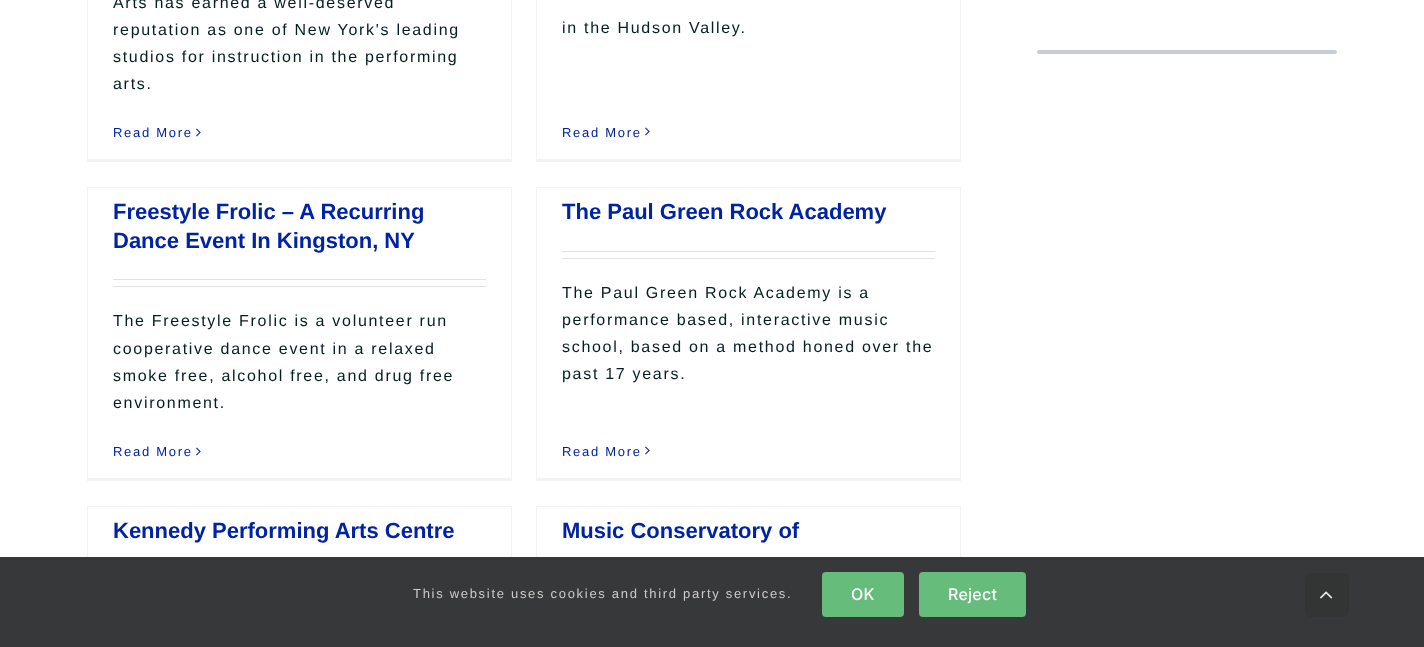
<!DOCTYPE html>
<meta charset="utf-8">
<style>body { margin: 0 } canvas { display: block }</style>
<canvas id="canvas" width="1424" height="647"></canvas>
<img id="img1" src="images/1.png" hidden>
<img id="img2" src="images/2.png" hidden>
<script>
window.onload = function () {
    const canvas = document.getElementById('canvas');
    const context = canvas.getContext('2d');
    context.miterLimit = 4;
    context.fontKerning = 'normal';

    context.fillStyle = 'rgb(255, 255, 255)';
    context.fillRect(0, 0, 1424, 647);
    context.fillStyle = 'rgb(242, 243, 245)';
    context.fillRect(511, 0, 1, 162);
    context.fillRect(87, 159, 425, 3);
    context.fillRect(87, 0, 1, 162);
    context.drawImage(document.getElementById('img1'), 196, 128, 5, 9);
    context.fillRect(960, 0, 1, 162);
    context.fillRect(536, 159, 425, 3);
    context.fillRect(536, 0, 1, 162);
    context.drawImage(document.getElementById('img1'), 645, 127, 5, 9);
    context.fillRect(87, 187, 425, 1);
    context.fillRect(511, 187, 1, 294);
    context.fillRect(87, 478, 425, 3);
    context.fillRect(87, 187, 1, 294);
    context.fillStyle = 'rgb(226, 226, 226)';
    context.fillRect(113, 279, 373, 1);
    context.fillRect(113, 286, 373, 1);
    context.drawImage(document.getElementById('img1'), 196, 447, 5, 9);
    context.fillStyle = 'rgb(242, 243, 245)';
    context.fillRect(536, 187, 425, 1);
    context.fillRect(960, 187, 1, 294);
    context.fillRect(536, 478, 425, 3);
    context.fillRect(536, 187, 1, 294);
    context.fillStyle = 'rgb(226, 226, 226)';
    context.fillRect(562, 251, 373, 1);
    context.fillRect(562, 258, 373, 1);
    context.drawImage(document.getElementById('img1'), 645, 446, 5, 9);
    context.fillStyle = 'rgb(242, 243, 245)';
    context.fillRect(87, 506, 425, 1);
    context.fillRect(511, 506, 1, 51);
    context.fillRect(87, 506, 1, 51);
    context.fillRect(536, 506, 425, 1);
    context.fillRect(960, 506, 1, 51);
    context.fillRect(536, 506, 1, 51);
    context.fillStyle = 'rgb(199, 204, 219)';
    context.beginPath();
    context.roundRect(1037, 50, 300, 4, 2);
    context.fill();
    context.fillStyle = 'rgb(54, 56, 57)';
    context.fillRect(0, 557, 1424, 90);
    context.fillStyle = 'rgb(101, 188, 123)';
    context.beginPath();
    context.roundRect(822, 572, 82, 45, 4);
    context.fill();
    context.beginPath();
    context.roundRect(919, 572, 107, 45, 4);
    context.fill();
    context.fillStyle = 'rgb(51, 52, 52)';
    context.beginPath();
    context.roundRect(1305, 573, 44, 44, 6);
    context.fill();
    context.drawImage(document.getElementById('img2'), 1320, 591, 13, 8);
    context.letterSpacing = '1.7px';
    context.font = '16px Liberation Sans';
    context.fillStyle = 'rgb(5, 30, 31)';
    context.fillText('Arts has earned a well-deserved', 113, 8);
    context.fillText('reputation as one of New York\'s leading', 113, 35);
    context.fillText('studios for instruction in the performing', 113, 62);
    context.fillText('arts.', 113, 89);
    context.font = '13px Liberation Sans';
    context.fillStyle = 'rgb(0, 35, 165)';
    context.fillText('Read More', 113, 137);
    context.font = '16px Liberation Sans';
    context.fillStyle = 'rgb(5, 30, 31)';
    context.fillText('in the Hudson Valley.', 562, 33);
    context.font = '13px Liberation Sans';
    context.fillStyle = 'rgb(0, 35, 165)';
    context.fillText('Read More', 562, 137);
    context.letterSpacing = '0px';
    context.font = 'bold 22px Liberation Sans';
    context.fillText('Freestyle Frolic – A Recurring', 113, 219);
    context.fillText('Dance Event In Kingston, NY', 113, 248);
    context.letterSpacing = '1.7px';
    context.font = '16px Liberation Sans';
    context.fillStyle = 'rgb(5, 30, 31)';
    context.fillText('The Freestyle Frolic is a volunteer run', 113, 326);
    context.fillText('cooperative dance event in a relaxed', 113, 354);
    context.fillText('smoke free, alcohol free, and drug free', 113, 381);
    context.fillText('environment.', 113, 408);
    context.font = '13px Liberation Sans';
    context.fillStyle = 'rgb(0, 35, 165)';
    context.fillText('Read More', 113, 456);
    context.letterSpacing = '0px';
    context.font = 'bold 22px Liberation Sans';
    context.fillText('The Paul Green Rock Academy', 562, 219);
    context.letterSpacing = '1.7px';
    context.font = '16px Liberation Sans';
    context.fillStyle = 'rgb(5, 30, 31)';
    context.fillText('The Paul Green Rock Academy is a', 562, 298);
    context.fillText('performance based, interactive music', 562, 325);
    context.fillText('school, based on a method honed over the', 562, 352);
    context.fillText('past 17 years.', 562, 379);
    context.font = '13px Liberation Sans';
    context.fillStyle = 'rgb(0, 35, 165)';
    context.fillText('Read More', 562, 456);
    context.letterSpacing = '0px';
    context.font = 'bold 22px Liberation Sans';
    context.fillText('Kennedy Performing Arts Centre', 113, 538);
    context.fillText('Music Conservatory of', 562, 538);
    context.letterSpacing = '1.7px';
    context.font = '13px Liberation Sans';
    context.fillStyle = 'rgb(206, 203, 202)';
    context.fillText('This website uses cookies and third party services.', 413, 598);
    context.letterSpacing = '0.25px';
    context.font = '500 16px Inter';
    context.fillStyle = 'rgb(255, 255, 255)';
    context.fillText('OK', 851, 600);
    context.fillText('Reject', 948, 600);
};
</script>
